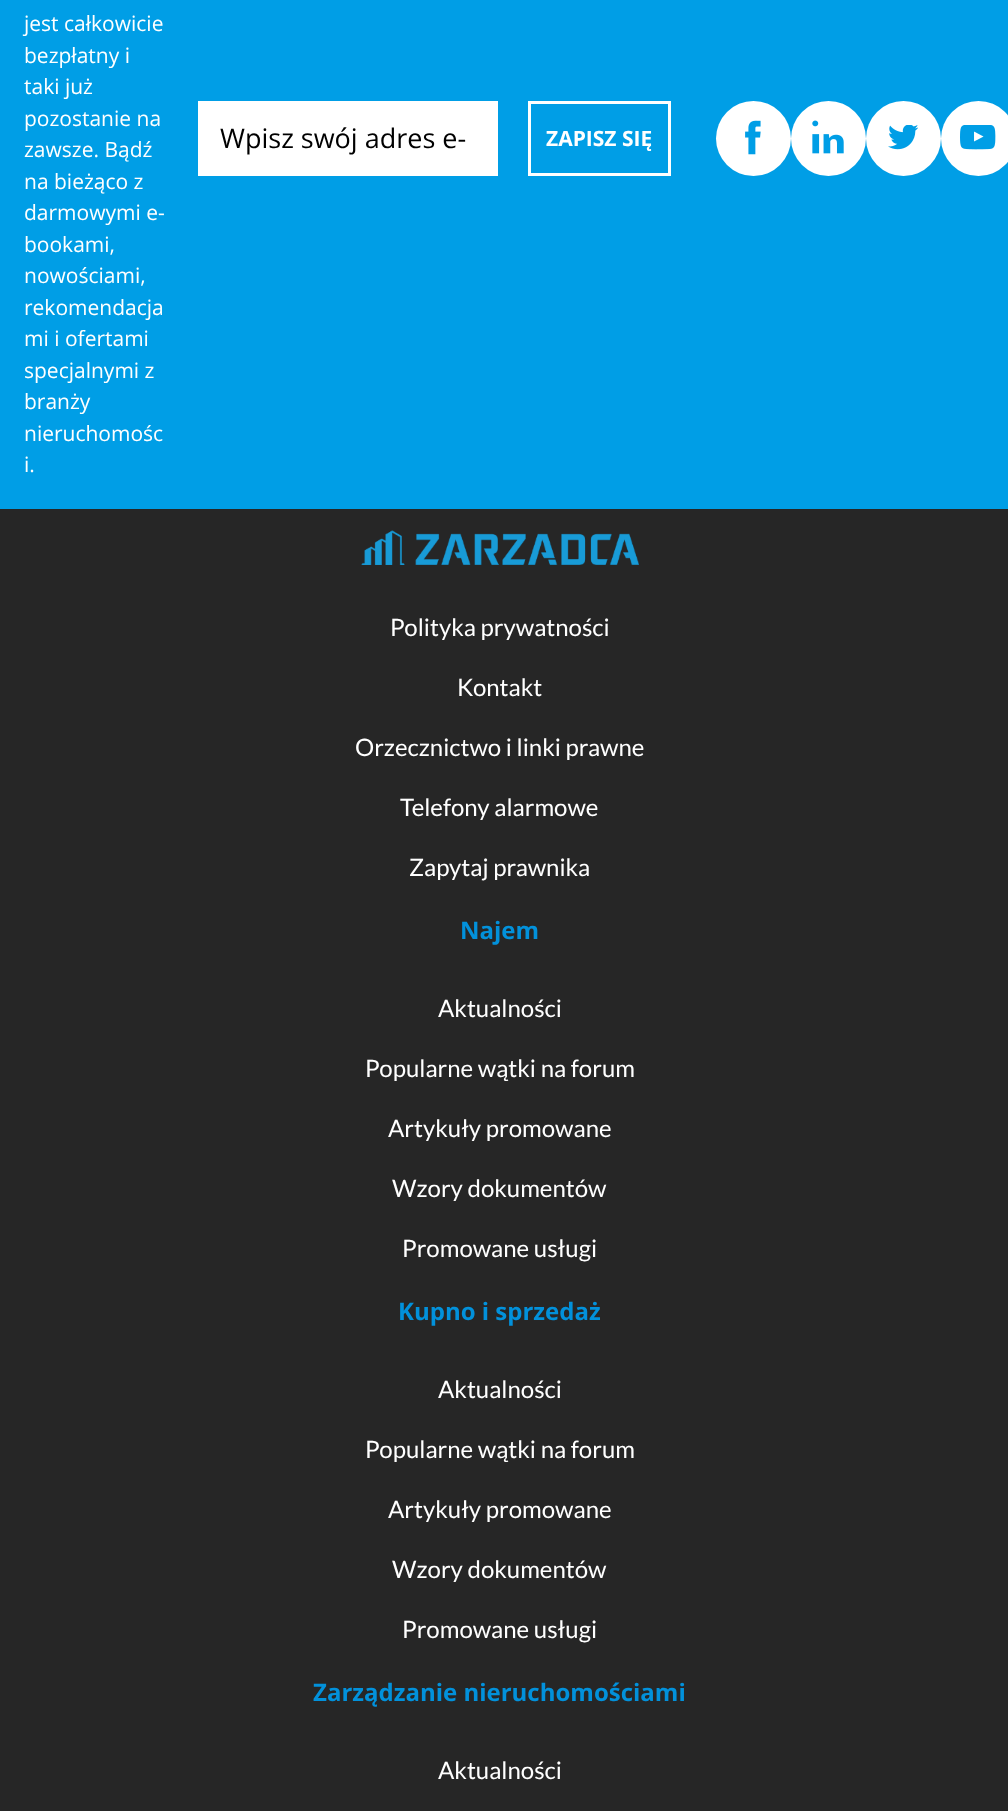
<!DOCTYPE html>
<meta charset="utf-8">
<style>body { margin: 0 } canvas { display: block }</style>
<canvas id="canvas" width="1008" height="1811"></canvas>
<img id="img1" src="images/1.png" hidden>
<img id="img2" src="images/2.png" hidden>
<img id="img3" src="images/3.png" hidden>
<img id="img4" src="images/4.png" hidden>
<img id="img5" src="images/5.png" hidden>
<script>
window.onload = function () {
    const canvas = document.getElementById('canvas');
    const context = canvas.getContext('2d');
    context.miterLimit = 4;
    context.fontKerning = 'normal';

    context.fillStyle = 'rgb(0, 158, 230)';
    context.fillRect(0, 0, 1008, 1811);
    context.fillStyle = 'rgb(255, 255, 255)';
    context.fillRect(198, 101, 300, 75);
    context.strokeStyle = 'rgb(255, 255, 255)';
    context.lineWidth = 3;
    context.strokeRect(529.5, 102.5, 140, 72);
    context.beginPath();
    context.arc(753.5, 138.5, 37.5, 0, 2 * Math.PI);
    context.fill();
    context.drawImage(document.getElementById('img1'), 745, 120, 16, 35);
    context.beginPath();
    context.arc(828.5, 138.5, 37.5, 0, 2 * Math.PI);
    context.fill();
    context.drawImage(document.getElementById('img2'), 812, 120, 32, 34);
    context.beginPath();
    context.arc(903.5, 138.5, 37.5, 0, 2 * Math.PI);
    context.fill();
    context.drawImage(document.getElementById('img3'), 888, 125, 30, 25);
    context.beginPath();
    context.arc(978.5, 138.5, 37.5, 0, 2 * Math.PI);
    context.fill();
    context.drawImage(document.getElementById('img4'), 960, 125, 36, 25);
    context.fillStyle = 'rgb(38, 38, 38)';
    context.fillRect(0, 509, 1008, 1302);
    context.drawImage(document.getElementById('img5'), 361, 530, 278, 35);
    context.font = '21px Open Sans';
    context.fillStyle = 'rgb(255, 255, 255)';
    context.fillText('jest całkowicie', 24, 31);
    context.fillText('bezpłatny i', 24, 63);
    context.fillText('taki już', 24, 94);
    context.fillText('pozostanie na', 24, 126);
    context.fillText('zawsze. Bądź', 24, 157);
    context.fillText('na bieżąco z', 24, 189);
    context.fillText('darmowymi e-', 24, 220);
    context.fillText('bookami,', 24, 252);
    context.fillText('nowościami,', 24, 283);
    context.fillText('rekomendacja', 24, 315);
    context.fillText('mi i ofertami', 24, 346);
    context.fillText('specjalnymi z', 24, 378);
    context.fillText('branży', 24, 409);
    context.fillText('nieruchomośc', 24, 441);
    context.fillText('i.', 24, 472);
    context.font = '27px Open Sans';
    context.fillStyle = 'rgb(0, 0, 0)';
    context.fillText('Wpisz swój adres e-', 220, 148);
    context.font = 'bold 21px Open Sans';
    context.fillStyle = 'rgb(255, 255, 255)';
    context.fillText('ZAPISZ SIĘ', 546, 146);
    context.font = '24px Lato';
    context.fillText('Polityka prywatności', 390, 636);
    context.fillText('Kontakt', 457, 696);
    context.fillText('Orzecznictwo i linki prawne', 355, 756);
    context.fillText('Telefony alarmowe', 400, 816);
    context.fillText('Zapytaj prawnika', 409, 876);
    context.font = 'bold 24px Open Sans';
    context.fillStyle = 'rgb(2, 145, 219)';
    context.fillText('Najem', 460, 939);
    context.font = '24px Lato';
    context.fillStyle = 'rgb(255, 255, 255)';
    context.fillText('Aktualności', 438, 1017);
    context.fillText('Popularne wątki na forum', 365, 1077);
    context.fillText('Artykuły promowane', 388, 1137);
    context.fillText('Wzory dokumentów', 392, 1197);
    context.fillText('Promowane usługi', 402, 1257);
    context.font = 'bold 24px Open Sans';
    context.fillStyle = 'rgb(2, 145, 219)';
    context.fillText('Kupno i sprzedaż', 398, 1320);
    context.font = '24px Lato';
    context.fillStyle = 'rgb(255, 255, 255)';
    context.fillText('Aktualności', 438, 1398);
    context.fillText('Popularne wątki na forum', 365, 1458);
    context.fillText('Artykuły promowane', 388, 1518);
    context.fillText('Wzory dokumentów', 392, 1578);
    context.fillText('Promowane usługi', 402, 1638);
    context.font = 'bold 24px Open Sans';
    context.fillStyle = 'rgb(2, 145, 219)';
    context.fillText('Zarządzanie nieruchomościami', 313, 1701);
    context.font = '24px Lato';
    context.fillStyle = 'rgb(255, 255, 255)';
    context.fillText('Aktualności', 438, 1779);
};
</script>
